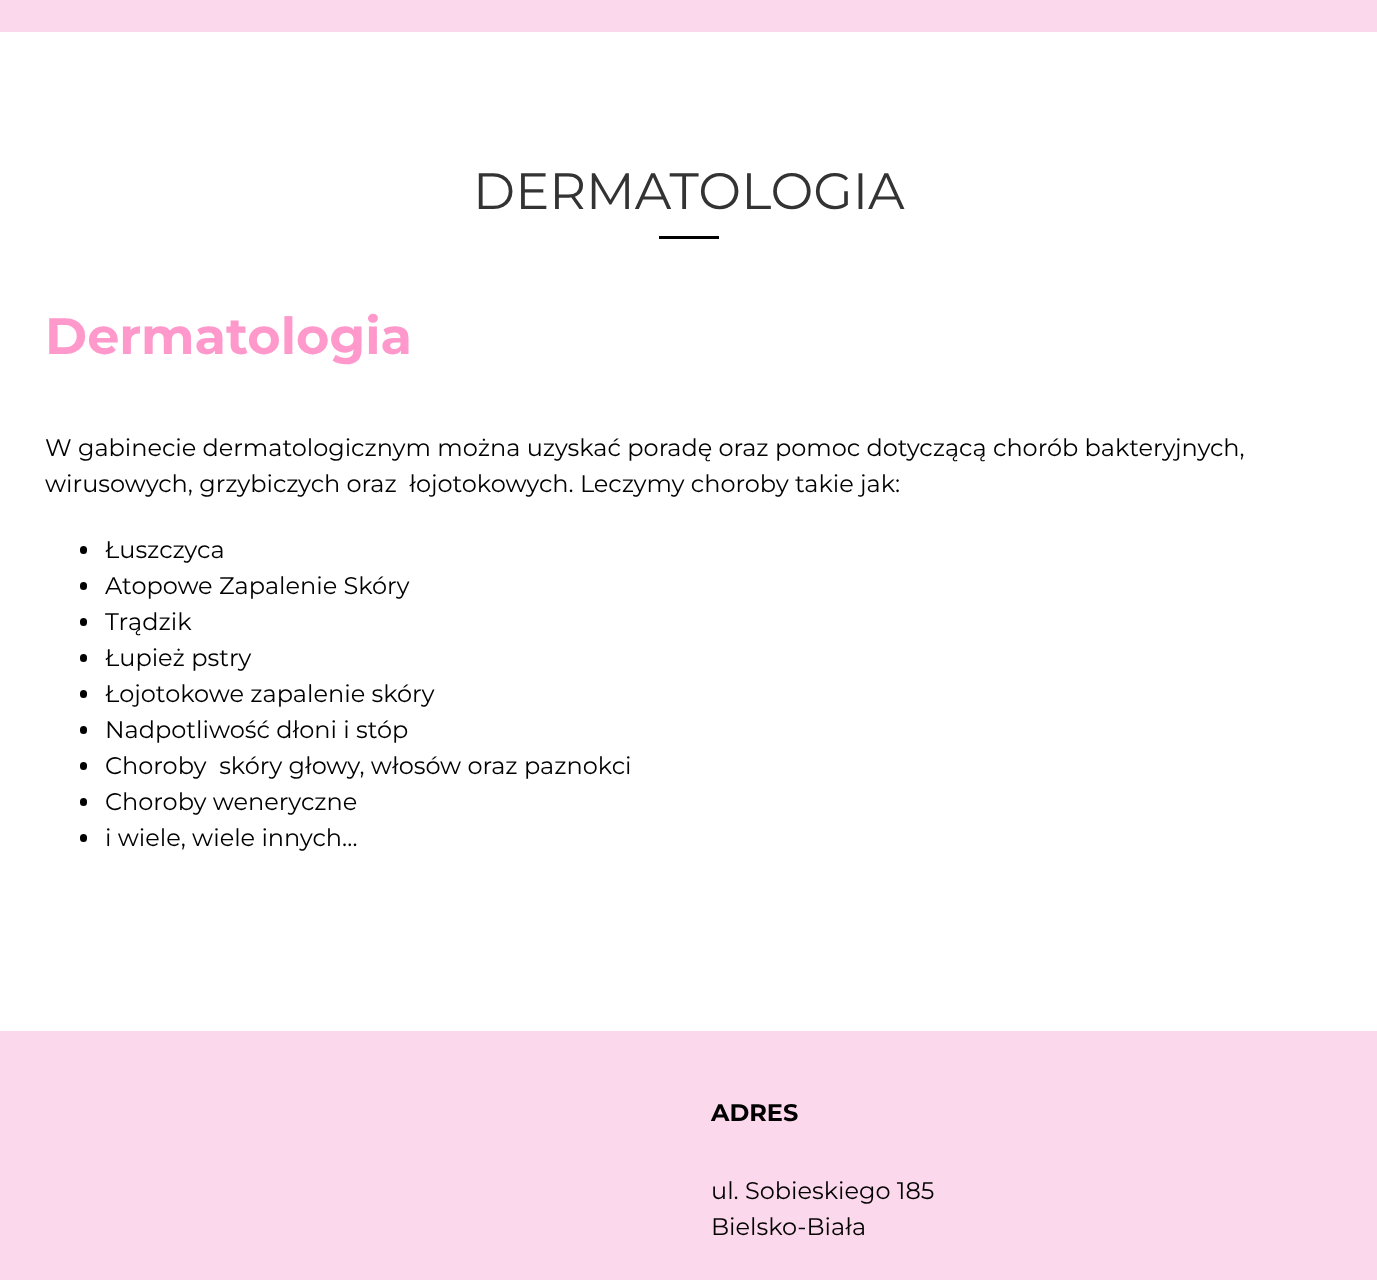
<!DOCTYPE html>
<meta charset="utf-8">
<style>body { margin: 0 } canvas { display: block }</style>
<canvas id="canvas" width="1377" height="1280"></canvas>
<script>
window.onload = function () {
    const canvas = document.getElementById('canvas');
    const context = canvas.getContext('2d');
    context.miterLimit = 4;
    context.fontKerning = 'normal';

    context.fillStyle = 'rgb(255, 255, 255)';
    context.fillRect(0, 0, 1377, 1280);
    context.fillStyle = 'rgb(251, 216, 236)';
    context.fillRect(0, 0, 1377, 32);
    context.fillStyle = 'rgb(0, 0, 0)';
    context.fillRect(659, 236, 60, 3);
    context.beginPath();
    context.roundRect(80, 546, 7, 8, 3.5);
    context.fill();
    context.beginPath();
    context.roundRect(80, 582, 7, 8, 3.5);
    context.fill();
    context.beginPath();
    context.roundRect(80, 618, 7, 8, 3.5);
    context.fill();
    context.beginPath();
    context.roundRect(80, 654, 7, 8, 3.5);
    context.fill();
    context.beginPath();
    context.roundRect(80, 690, 7, 8, 3.5);
    context.fill();
    context.beginPath();
    context.roundRect(80, 726, 7, 8, 3.5);
    context.fill();
    context.beginPath();
    context.roundRect(80, 762, 7, 8, 3.5);
    context.fill();
    context.beginPath();
    context.roundRect(80, 798, 7, 8, 3.5);
    context.fill();
    context.beginPath();
    context.roundRect(80, 834, 7, 8, 3.5);
    context.fill();
    context.fillStyle = 'rgb(251, 216, 236)';
    context.fillRect(0, 1031, 1377, 249);
    context.font = '51px Montserrat';
    context.fillStyle = 'rgb(51, 51, 51)';
    context.fillText('DERMATOLOGIA', 473, 209);
    context.font = 'bold 51px Montserrat';
    context.fillStyle = 'rgb(255, 153, 204)';
    context.fillText('Dermatologia', 45, 354);
    context.font = '24px Montserrat';
    context.fillStyle = 'rgb(0, 0, 0)';
    context.fillText('W gabinecie dermatologicznym można uzyskać poradę oraz pomoc dotyczącą chorób bakteryjnych,', 45, 456);
    context.fillText('wirusowych, grzybiczych oraz  łojotokowych. Leczymy choroby takie jak:', 45, 492);
    context.fillText('Łuszczyca', 105, 558);
    context.fillText('Atopowe Zapalenie Skóry', 105, 594);
    context.fillText('Trądzik', 105, 630);
    context.fillText('Łupież pstry', 105, 666);
    context.fillText('Łojotokowe zapalenie skóry', 105, 702);
    context.fillText('Nadpotliwość dłoni i stóp', 105, 738);
    context.fillText('Choroby  skóry głowy, włosów oraz paznokci', 105, 774);
    context.fillText('Choroby weneryczne', 105, 810);
    context.fillText('i wiele, wiele innych…', 105, 846);
    context.font = 'bold 24px Montserrat';
    context.fillText('ADRES', 711, 1121);
    context.font = '24px Montserrat';
    context.fillText('ul. Sobieskiego 185', 711, 1199);
    context.fillText('Bielsko-Biała', 711, 1235);
};
</script>
